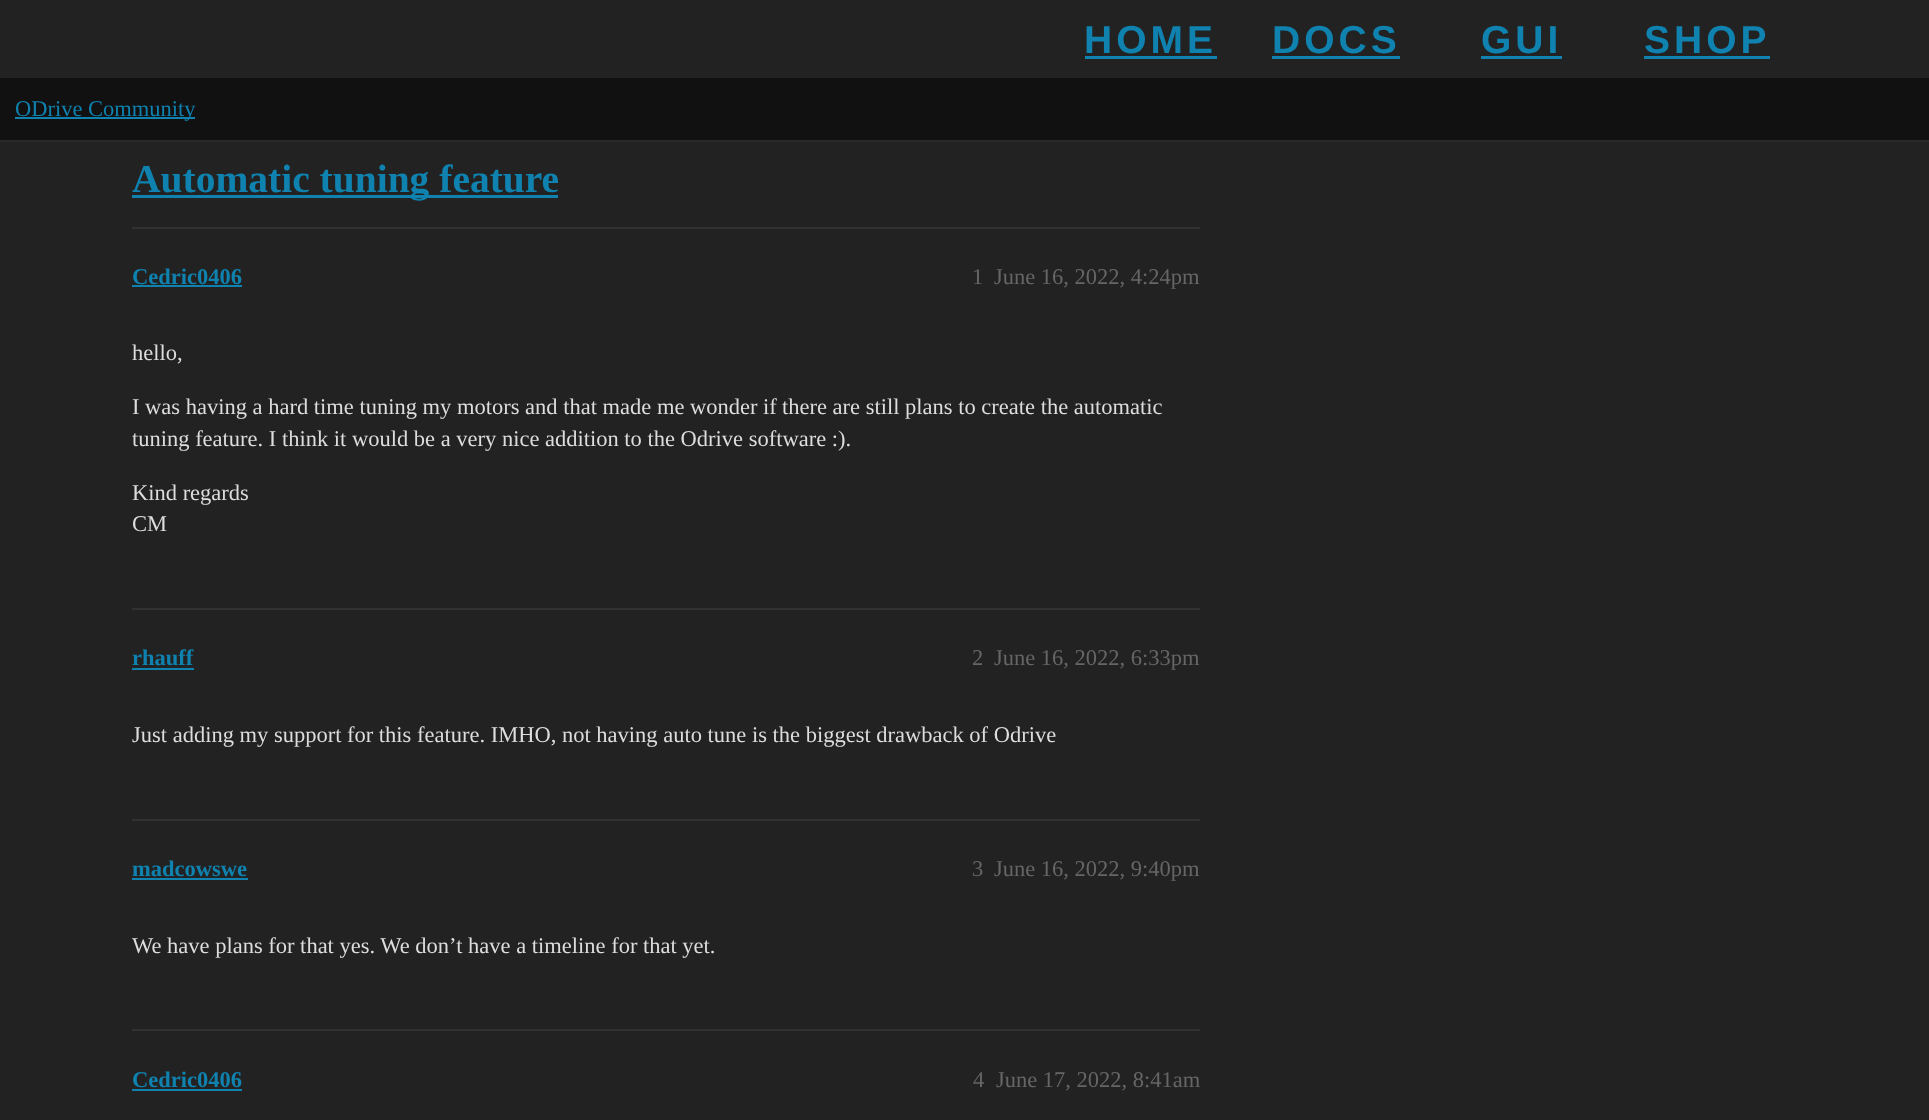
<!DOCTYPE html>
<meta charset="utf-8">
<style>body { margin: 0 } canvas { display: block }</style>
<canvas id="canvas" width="1929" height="1120"></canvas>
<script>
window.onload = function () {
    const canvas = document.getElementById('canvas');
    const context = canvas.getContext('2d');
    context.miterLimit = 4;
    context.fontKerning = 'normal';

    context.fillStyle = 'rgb(34, 34, 34)';
    context.fillRect(0, 0, 1929, 1120);
    context.fillStyle = 'rgb(15, 130, 175)';
    context.fillRect(1085, 56, 132, 3);
    context.fillRect(1272, 56, 128, 3);
    context.fillRect(1481, 56, 81, 3);
    context.fillRect(1644, 56, 126, 3);
    context.fillStyle = 'rgb(17, 17, 17)';
    context.fillRect(0, 78, 1929, 62);
    context.fillStyle = 'rgb(40, 40, 40)';
    context.fillRect(0, 140, 1929, 2);
    context.fillStyle = 'rgb(15, 130, 175)';
    context.fillRect(15, 117, 180, 2);
    context.fillRect(132, 195, 426, 3);
    context.fillStyle = 'rgb(49, 49, 49)';
    context.fillRect(132, 227, 1068, 2);
    context.fillStyle = 'rgb(15, 130, 175)';
    context.fillRect(132, 285, 110, 2);
    context.fillStyle = 'rgb(49, 49, 49)';
    context.fillRect(132, 608, 1068, 2);
    context.fillStyle = 'rgb(15, 130, 175)';
    context.fillRect(132, 668, 62, 2);
    context.fillStyle = 'rgb(49, 49, 49)';
    context.fillRect(132, 819, 1068, 2);
    context.fillStyle = 'rgb(15, 130, 175)';
    context.fillRect(132, 878, 116, 2);
    context.fillStyle = 'rgb(49, 49, 49)';
    context.fillRect(132, 1029, 1068, 2);
    context.fillStyle = 'rgb(15, 130, 175)';
    context.fillRect(132, 1089, 110, 2);
    context.letterSpacing = '4px';
    context.font = 'bold 39px Liberation Sans';
    context.fillText('HOME', 1084, 53);
    context.fillText('DOCS', 1272, 53);
    context.fillText('GUI', 1481, 53);
    context.fillText('SHOP', 1644, 53);
    context.letterSpacing = '0px';
    context.font = '22.5px Liberation Serif';
    context.fillText('ODrive Community', 15, 116);
    context.font = 'bold 39.5px Liberation Serif';
    context.fillText('Automatic tuning feature', 132, 192);
    context.font = 'bold 22.5px Liberation Serif';
    context.fillText('Cedric0406', 132, 284);
    context.font = '22.5px Liberation Serif';
    context.fillStyle = 'rgb(102, 102, 102)';
    context.fillText('1', 972, 284);
    context.fillText('June 16, 2022, 4:24pm', 994, 284);
    context.fillStyle = 'rgb(221, 221, 221)';
    context.fillText('hello,', 132, 360);
    context.fillText('I was having a hard time tuning my motors and that made me wonder if', 132, 414);
    context.fillText('there are still plans to create the automatic', 782, 414);
    context.fillText('tuning feature. I think it would be a very nice addition to the Odrive software :).', 132, 446);
    context.fillText('Kind regards', 132, 500);
    context.fillText('CM', 132, 531);
    context.font = 'bold 22.5px Liberation Serif';
    context.fillStyle = 'rgb(15, 130, 175)';
    context.fillText('rhauff', 132, 665);
    context.font = '22.5px Liberation Serif';
    context.fillStyle = 'rgb(102, 102, 102)';
    context.fillText('2', 972, 665);
    context.fillText('June 16, 2022, 6:33pm', 994, 665);
    context.fillStyle = 'rgb(221, 221, 221)';
    context.fillText('Just adding my support for this feature. IMHO, not having auto tune is the biggest drawback of Odrive', 132, 742);
    context.font = 'bold 22.5px Liberation Serif';
    context.fillStyle = 'rgb(15, 130, 175)';
    context.fillText('madcowswe', 132, 876);
    context.font = '22.5px Liberation Serif';
    context.fillStyle = 'rgb(102, 102, 102)';
    context.fillText('3', 972, 876);
    context.fillText('June 16, 2022, 9:40pm', 994, 876);
    context.fillStyle = 'rgb(221, 221, 221)';
    context.fillText('We have plans for that yes. We don’t have a timeline for that yet.', 132, 953);
    context.font = 'bold 22.5px Liberation Serif';
    context.fillStyle = 'rgb(15, 130, 175)';
    context.fillText('Cedric0406', 132, 1087);
    context.font = '22.5px Liberation Serif';
    context.fillStyle = 'rgb(102, 102, 102)';
    context.fillText('4', 973, 1087);
    context.fillText('June 17, 2022, 8:41am', 996, 1087);
};
</script>
